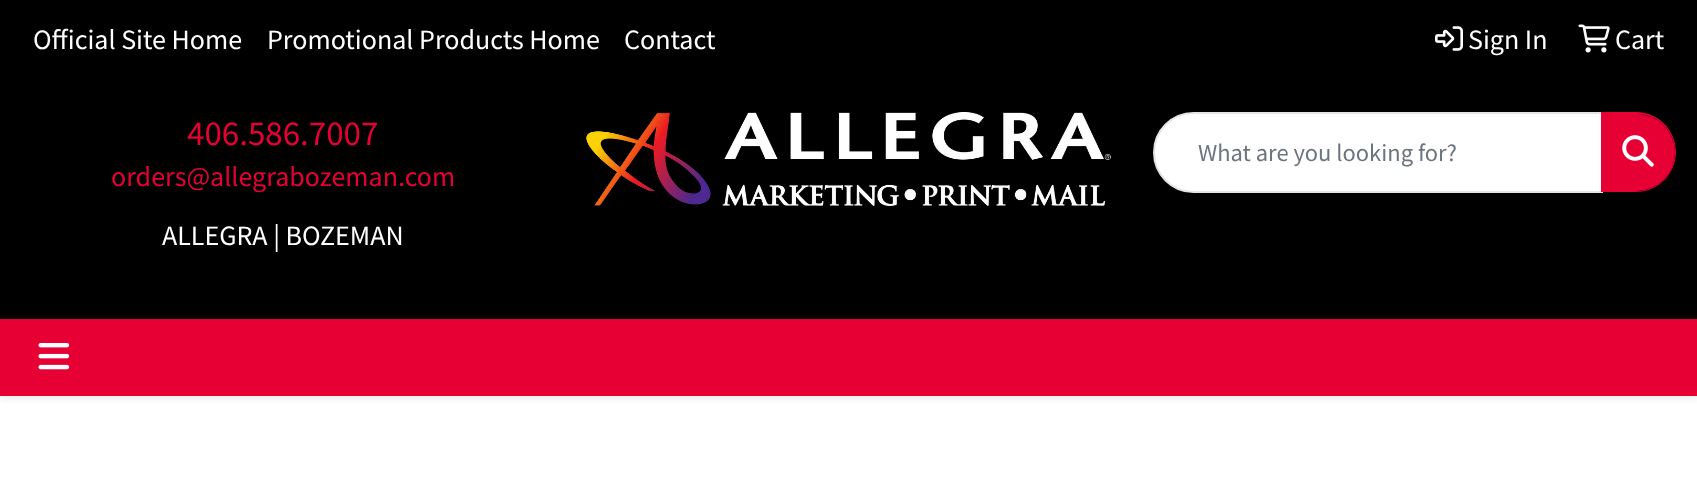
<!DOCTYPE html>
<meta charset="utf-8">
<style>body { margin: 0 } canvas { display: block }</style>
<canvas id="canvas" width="1697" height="485"></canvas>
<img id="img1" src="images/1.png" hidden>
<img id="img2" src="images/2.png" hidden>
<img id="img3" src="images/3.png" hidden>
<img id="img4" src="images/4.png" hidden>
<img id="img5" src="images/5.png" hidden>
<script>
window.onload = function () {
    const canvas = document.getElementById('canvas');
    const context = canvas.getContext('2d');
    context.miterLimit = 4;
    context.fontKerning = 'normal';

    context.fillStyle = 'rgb(255, 255, 255)';
    context.fillRect(0, 0, 1697, 485);
    context.fillStyle = 'rgb(0, 0, 0)';
    context.fillRect(0, 0, 1697, 319);
    context.drawImage(document.getElementById('img1'), 1435, 26, 28, 25);
    context.drawImage(document.getElementById('img2'), 1578, 24, 32, 29);
    context.drawImage(document.getElementById('img3'), 586, 112, 525, 94);
    context.fillStyle = 'rgb(255, 255, 255)';
    context.beginPath();
    context.roundRect(1154, 113, 448, 79, [39.5, 0, 0, 39.5]);
    context.fill();
    context.strokeStyle = 'rgb(228, 228, 228)';
    context.lineWidth = 2;
    context.stroke();
    context.fillStyle = 'rgb(231, 0, 52)';
    context.beginPath();
    context.roundRect(1601, 114, 74, 77, [0, 38.5, 38.5, 0]);
    context.fill();
    context.beginPath();
    context.moveTo(1601, 112);
    context.lineTo(1636, 112);
    context.bezierCurveTo(1658, 112, 1676, 130, 1676, 152);
    context.bezierCurveTo(1676, 174, 1658, 192, 1636, 192);
    context.lineTo(1601, 192);
    context.closePath();
    context.moveTo(1601, 114);
    context.lineTo(1636, 114);
    context.bezierCurveTo(1658, 114, 1675, 131, 1675, 152);
    context.bezierCurveTo(1675, 174, 1658, 191, 1636, 191);
    context.lineTo(1601, 191);
    context.closePath();
    context.fill('evenodd');
    context.drawImage(document.getElementById('img4'), 1622, 135, 32, 32);
    context.fillStyle = 'rgba(0, 0, 0, 0.07)';
    context.filter = 'blur(3.5px)';
    context.beginPath();
    context.rect(0, 322, 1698, 77);
    context.fill();
    context.filter = 'none';
    context.fillStyle = 'rgb(231, 0, 52)';
    context.fillRect(0, 319, 1697, 77);
    context.drawImage(document.getElementById('img5'), 38, 343, 32, 27);
    context.font = '28px Source Sans Pro';
    context.fillStyle = 'rgb(255, 255, 255)';
    context.fillText('Official Site Home', 33, 49);
    context.fillText('Promotional Products Home', 267, 49);
    context.fillText('Contact', 624, 49);
    context.fillText('Sign In', 1468, 49);
    context.fillText('Cart', 1615, 49);
    context.font = '35px Source Sans Pro';
    context.fillStyle = 'rgb(231, 0, 52)';
    context.fillText('406.586.7007', 187, 145);
    context.font = '28px Source Sans Pro';
    context.fillText('orders@allegrabozeman.com', 111, 186);
    context.fillStyle = 'rgb(255, 255, 255)';
    context.fillText('ALLEGRA | BOZEMAN', 162, 245);
    context.font = '24.5px Source Sans Pro';
    context.fillStyle = 'rgb(108, 117, 125)';
    context.fillText('What are you looking for?', 1198, 161);
};
</script>
